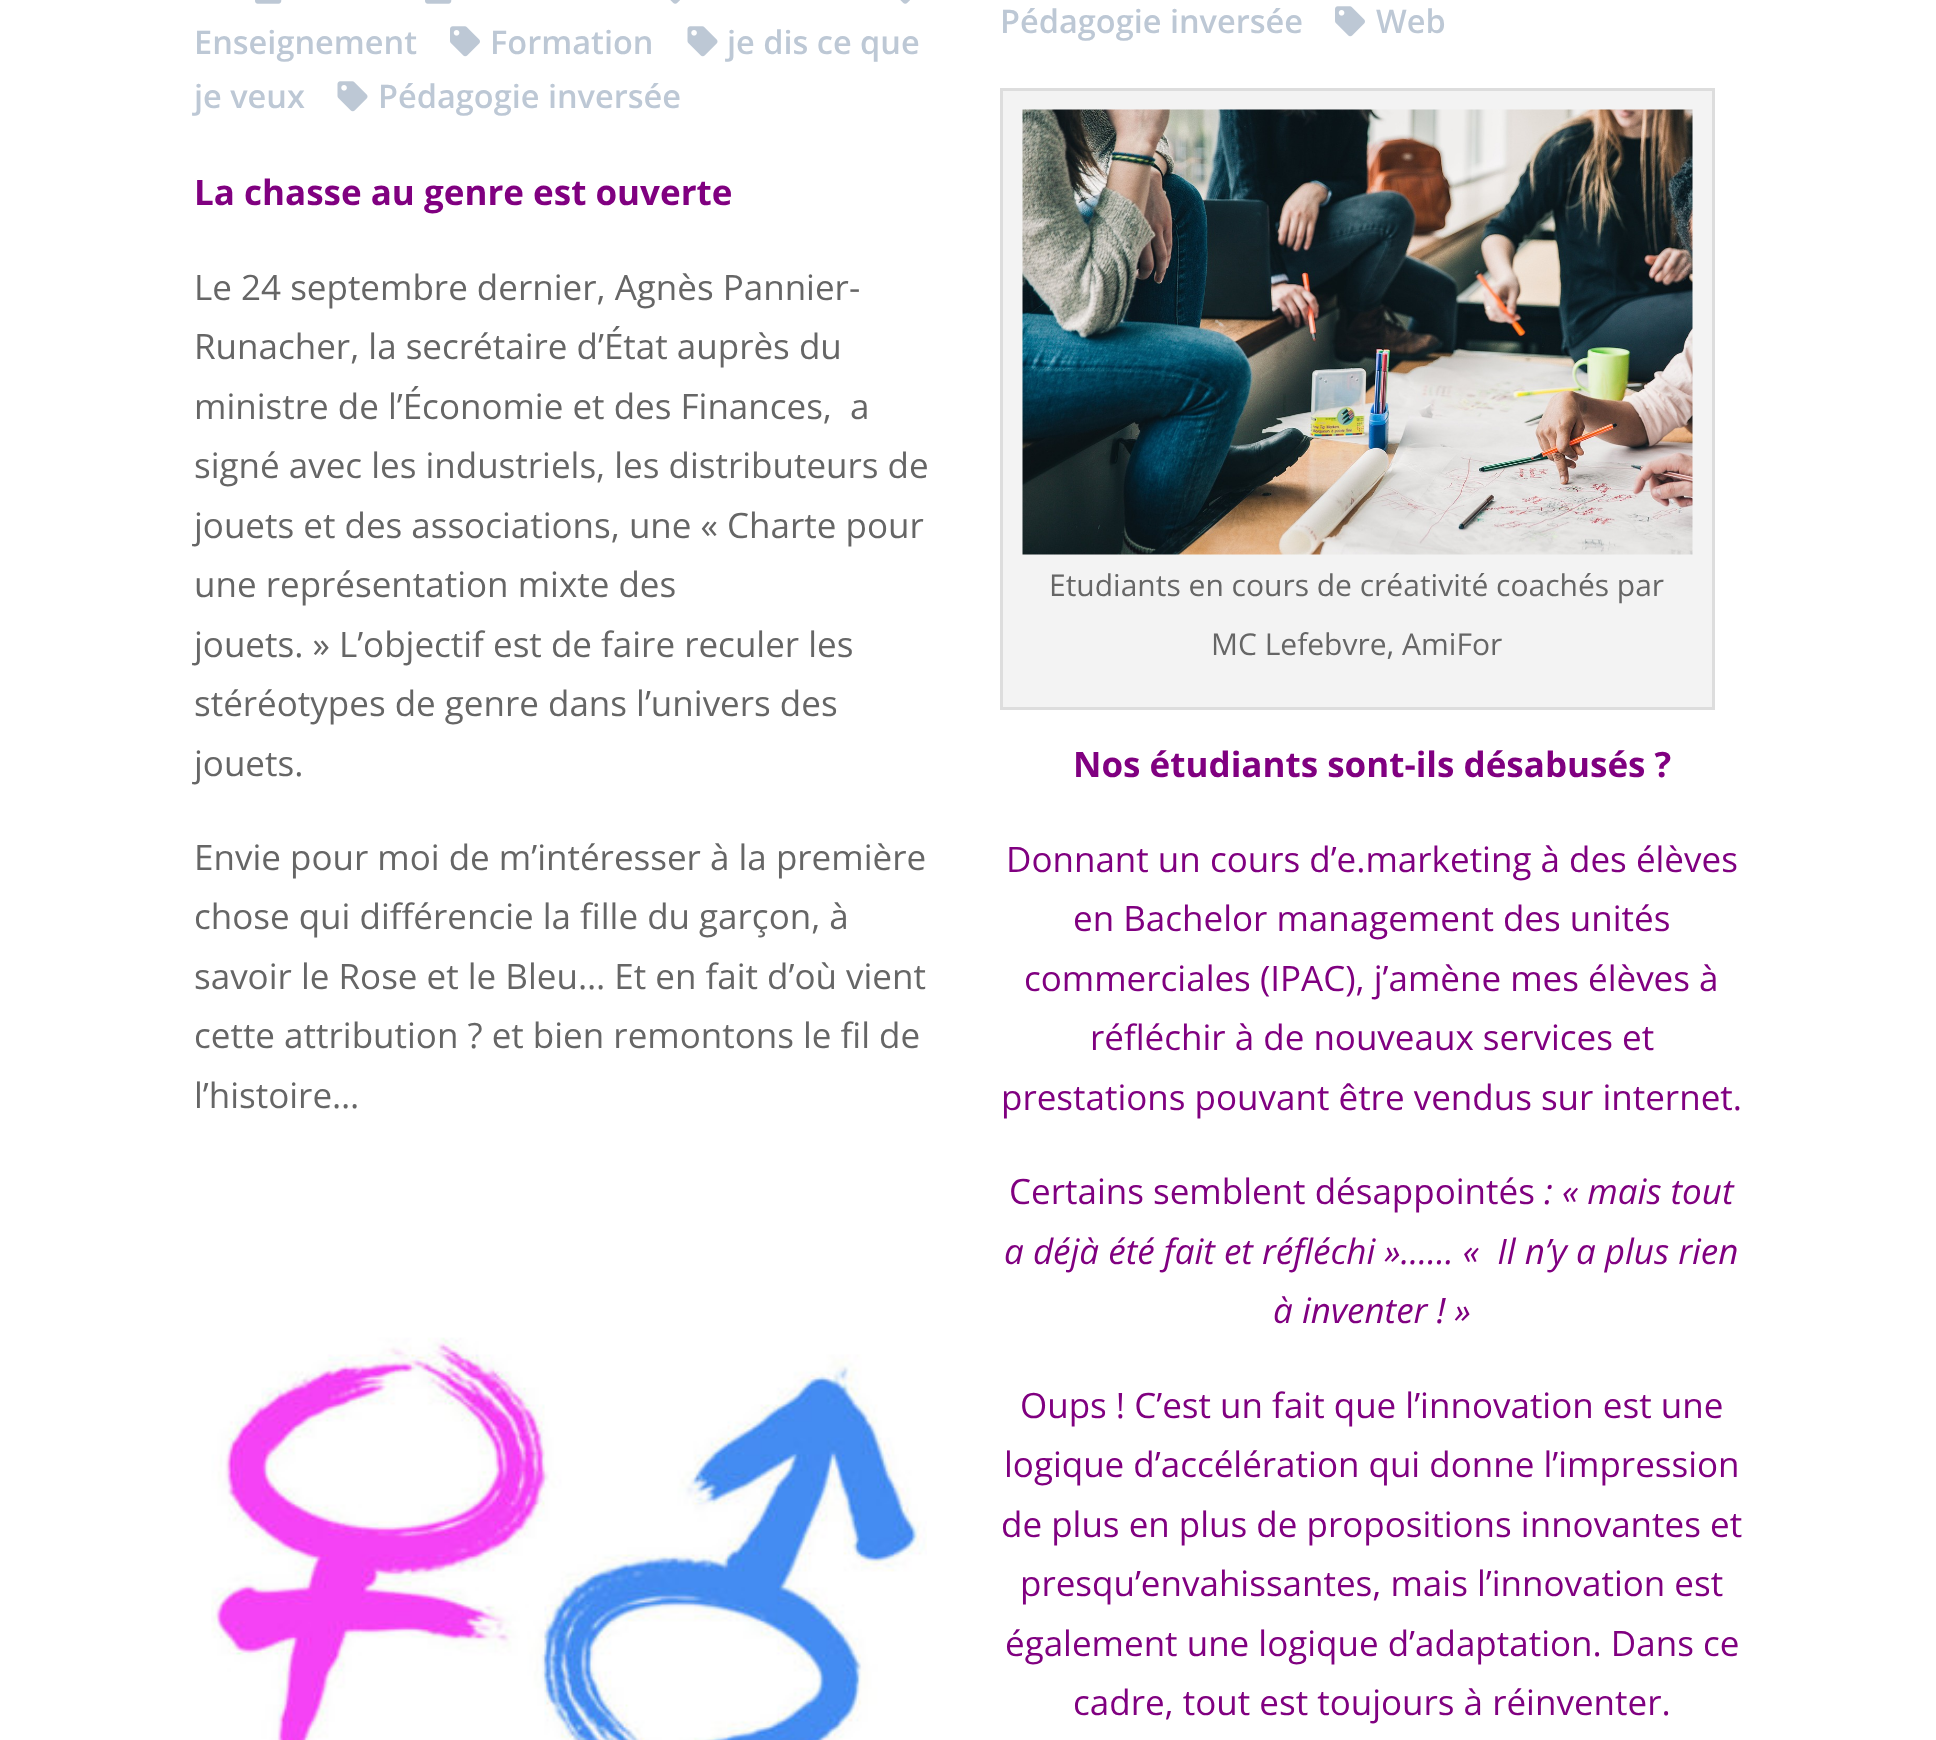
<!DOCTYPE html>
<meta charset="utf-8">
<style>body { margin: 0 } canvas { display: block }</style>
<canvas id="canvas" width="1936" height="1740"></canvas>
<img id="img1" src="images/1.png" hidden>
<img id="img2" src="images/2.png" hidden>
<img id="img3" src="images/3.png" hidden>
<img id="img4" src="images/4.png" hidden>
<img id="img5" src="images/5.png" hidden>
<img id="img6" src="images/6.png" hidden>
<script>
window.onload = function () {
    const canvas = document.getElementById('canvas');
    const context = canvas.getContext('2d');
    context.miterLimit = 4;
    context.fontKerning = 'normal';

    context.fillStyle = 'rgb(255, 255, 255)';
    context.fillRect(0, 0, 1936, 1740);
    context.drawImage(document.getElementById('img1'), 255, 0, 27, 4);
    context.drawImage(document.getElementById('img1'), 425, 0, 27, 4);
    context.drawImage(document.getElementById('img2'), 670, 0, 10, 4);
    context.drawImage(document.getElementById('img3'), 687, 26, 31, 31);
    context.drawImage(document.getElementById('img2'), 900, 0, 10, 4);
    context.drawImage(document.getElementById('img4'), 450, 26, 30, 31);
    context.drawImage(document.getElementById('img3'), 337, 81, 31, 31);
    context.drawImage(document.getElementById('img5'), 211, 1337, 716, 403);
    context.drawImage(document.getElementById('img4'), 1335, 6, 30, 31);
    context.fillStyle = 'rgb(243, 243, 243)';
    context.beginPath();
    context.rect(1001.5, 89.5, 712, 619);
    context.fill();
    context.strokeStyle = 'rgb(221, 221, 221)';
    context.lineWidth = 3;
    context.stroke();
    context.drawImage(document.getElementById('img6'), 1022, 109, 671, 446);
    context.font = '600 32.5px Open Sans';
    context.fillStyle = 'rgb(189, 200, 213)';
    context.fillText('je dis ce que', 727, 54);
    context.fillText('je veux', 194, 108);
    context.fillText('Enseignement', 194, 54);
    context.fillText('Formation', 490, 54);
    context.fillText('Pédagogie inversée', 378, 108);
    context.font = 'bold 35px Open Sans';
    context.fillStyle = 'rgb(128, 0, 128)';
    context.fillText('La chasse au genre est ouverte', 194, 205);
    context.font = '35px Open Sans';
    context.fillStyle = 'rgb(102, 102, 102)';
    context.fillText('Le 24 septembre dernier, Agnès Pannier-', 194, 300);
    context.fillText('Runacher, la secrétaire d’État auprès du', 194, 359);
    context.fillText('ministre de l’Économie et des Finances,  a', 194, 419);
    context.fillText('signé avec les industriels, les distributeurs de', 194, 478);
    context.fillText('jouets et des associations, une « Charte pour', 194, 538);
    context.fillText('une représentation mixte des', 194, 597);
    context.fillText('jouets. » L’objectif est de faire reculer les', 194, 657);
    context.fillText('stéréotypes de genre dans l’univers des', 194, 716);
    context.fillText('jouets.', 194, 776);
    context.fillText('Envie pour moi de m’intéresser à la première', 194, 870);
    context.fillText('chose qui différencie la fille du garçon, à', 194, 929);
    context.fillText('savoir le Rose et le Bleu… Et en fait d’où vient', 194, 989);
    context.fillText('cette attribution ? et bien remontons le fil de', 194, 1048);
    context.fillText('l’histoire…', 194, 1108);
    context.font = '600 32.5px Open Sans';
    context.fillStyle = 'rgb(189, 200, 213)';
    context.fillText('Pédagogie inversée', 1000, 33);
    context.fillText('Web', 1376, 33);
    context.font = '30px Open Sans';
    context.fillStyle = 'rgb(102, 102, 102)';
    context.fillText('Etudiants en cours de créativité coachés par', 1049, 596);
    context.fillText('MC Lefebvre, AmiFor', 1211, 655);
    context.font = 'bold 35px Open Sans';
    context.fillStyle = 'rgb(128, 0, 128)';
    context.fillText('Nos étudiants sont-ils désabusés ?', 1073, 777);
    context.font = '35px Open Sans';
    context.fillText('Donnant un cours d’e.marketing à des élèves', 1006, 872);
    context.fillText('en Bachelor management des unités', 1073, 931);
    context.fillText('commerciales (IPAC), j’amène mes élèves à', 1024, 991);
    context.fillText('réfléchir à de nouveaux services et', 1090, 1050);
    context.fillText('prestations pouvant être vendus sur internet.', 1001, 1110);
    context.fillText('Certains semblent désappointés', 1009, 1204);
    context.font = 'italic 35px Open Sans';
    context.fillText(': « mais tout', 1544, 1204);
    context.fillText('a déjà été fait et réfléchi »…… «  Il n’y a plus rien', 1004, 1264);
    context.fillText('à inventer ! »', 1273, 1323);
    context.font = '35px Open Sans';
    context.fillText('Oups ! C’est un fait que l’innovation est une', 1020, 1418);
    context.fillText('logique d’accélération qui donne l’impression', 1004, 1477);
    context.fillText('de plus en plus de propositions innovantes et', 1001, 1537);
    context.fillText('presqu’envahissantes, mais l’innovation est', 1020, 1596);
    context.fillText('également une logique d’adaptation. Dans ce', 1005, 1656);
    context.fillText('cadre, tout est toujours à réinventer.', 1073, 1715);
};
</script>
